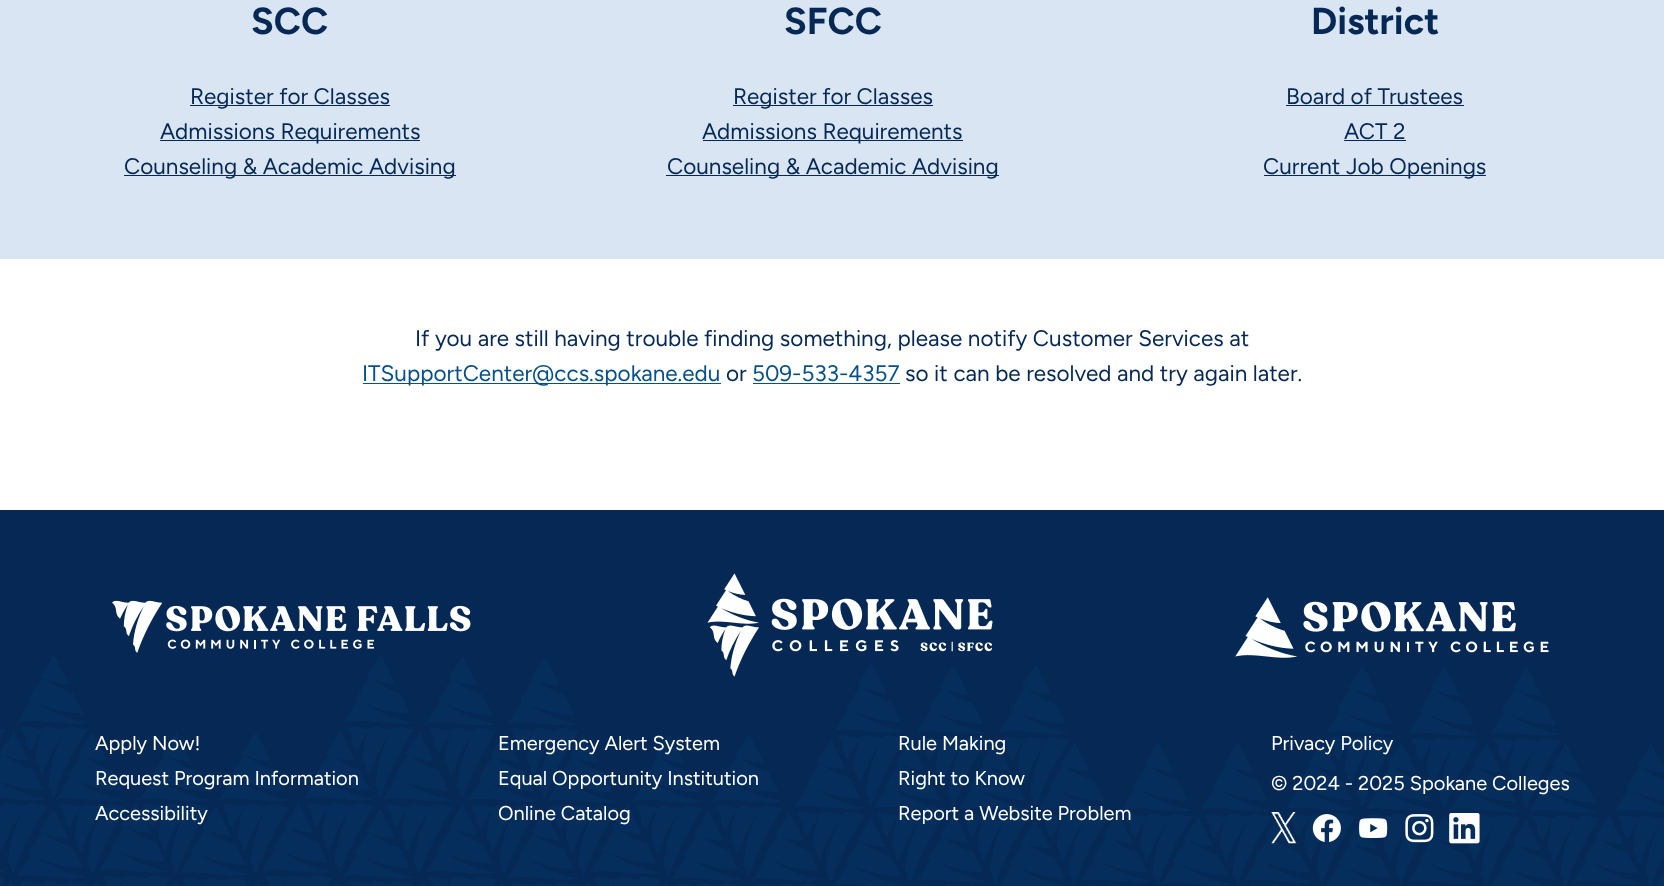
<!DOCTYPE html>
<meta charset="utf-8">
<style>body { margin: 0 } canvas { display: block }</style>
<canvas id="canvas" width="1664" height="886"></canvas>
<img id="img1" src="images/1.png" hidden>
<img id="img2" src="images/2.png" hidden>
<img id="img3" src="images/3.png" hidden>
<img id="img4" src="images/4.png" hidden>
<img id="img5" src="images/5.png" hidden>
<img id="img6" src="images/6.png" hidden>
<img id="img7" src="images/7.png" hidden>
<img id="img8" src="images/8.png" hidden>
<img id="img9" src="images/9.png" hidden>
<script>
window.onload = function () {
    const canvas = document.getElementById('canvas');
    const context = canvas.getContext('2d');
    context.miterLimit = 4;
    context.fontKerning = 'normal';

    context.fillStyle = 'rgb(255, 255, 255)';
    context.fillRect(0, 0, 1664, 886);
    context.fillStyle = 'rgb(217, 229, 242)';
    context.fillRect(0, 0, 1664, 259);
    context.fillStyle = 'rgb(5, 40, 85)';
    context.fillRect(190, 105, 200, 1);
    context.fillRect(160, 140, 260, 1);
    context.fillRect(124, 175, 332, 1);
    context.fillRect(733, 105, 200, 1);
    context.fillRect(703, 140, 260, 1);
    context.fillRect(666, 175, 333, 1);
    context.fillRect(1286, 105, 178, 1);
    context.fillRect(1344, 140, 62, 1);
    context.fillRect(1264, 175, 222, 1);
    context.fillStyle = 'rgb(5, 80, 140)';
    context.fillRect(363, 383, 358, 1);
    context.fillRect(753, 383, 147, 1);
    context.fillStyle = 'rgb(5, 40, 85)';
    context.fillRect(0, 510, 1664, 376);
    context.drawImage(document.getElementById('img1'), 0, 655, 1664, 231);
    context.drawImage(document.getElementById('img2'), 112, 600, 359, 53);
    context.drawImage(document.getElementById('img3'), 707, 573, 286, 104);
    context.drawImage(document.getElementById('img4'), 1235, 597, 314, 61);
    context.drawImage(document.getElementById('img5'), 1271, 812, 26, 32);
    context.drawImage(document.getElementById('img6'), 1312, 814, 29, 28);
    context.drawImage(document.getElementById('img7'), 1359, 818, 29, 20);
    context.drawImage(document.getElementById('img8'), 1405, 814, 29, 29);
    context.drawImage(document.getElementById('img9'), 1449, 813, 31, 31);
    context.font = 'bold 37.5px Figtree';
    context.fillText('SCC', 251, 34);
    context.font = '22.5px Figtree';
    context.fillText('Register for Classes', 190, 104);
    context.fillText('Admissions Requirements', 160, 139);
    context.fillText('Counseling & Academic Advising', 124, 174);
    context.font = 'bold 37.5px Figtree';
    context.fillText('SFCC', 784, 34);
    context.font = '22.5px Figtree';
    context.fillText('Register for Classes', 733, 104);
    context.fillText('Admissions Requirements', 702, 139);
    context.fillText('Counseling & Academic Advising', 667, 174);
    context.font = 'bold 37.5px Figtree';
    context.fillText('District', 1311, 34);
    context.font = '22.5px Figtree';
    context.fillText('Board of Trustees', 1286, 104);
    context.fillText('ACT 2', 1344, 139);
    context.fillText('Current Job Openings', 1263, 174);
    context.fillText('If you are still having trouble finding something, please notify Customer Services at', 415, 346);
    context.fillStyle = 'rgb(5, 80, 140)';
    context.fillText('ITSupportCenter@ccs.spokane.edu', 362, 381);
    context.fillStyle = 'rgb(5, 40, 85)';
    context.fillText('or', 726, 381);
    context.fillStyle = 'rgb(5, 80, 140)';
    context.fillText('509-533-4357', 752, 381);
    context.fillStyle = 'rgb(5, 40, 85)';
    context.fillText('so it can be resolved and try again later.', 905, 381);
    context.font = '20px Figtree';
    context.fillStyle = 'rgb(255, 255, 255)';
    context.fillText('Apply Now!', 95, 750);
    context.fillText('Request Program Information', 95, 785);
    context.fillText('Accessibility', 95, 820);
    context.fillText('Emergency Alert System', 498, 750);
    context.fillText('Equal Opportunity Institution', 498, 785);
    context.fillText('Online Catalog', 498, 820);
    context.fillText('Rule Making', 898, 750);
    context.fillText('Right to Know', 898, 785);
    context.fillText('Report a Website Problem', 898, 820);
    context.fillText('Privacy Policy', 1271, 750);
    context.fillText('© 2024 - 2025 Spokane Colleges', 1271, 790);
};
</script>
